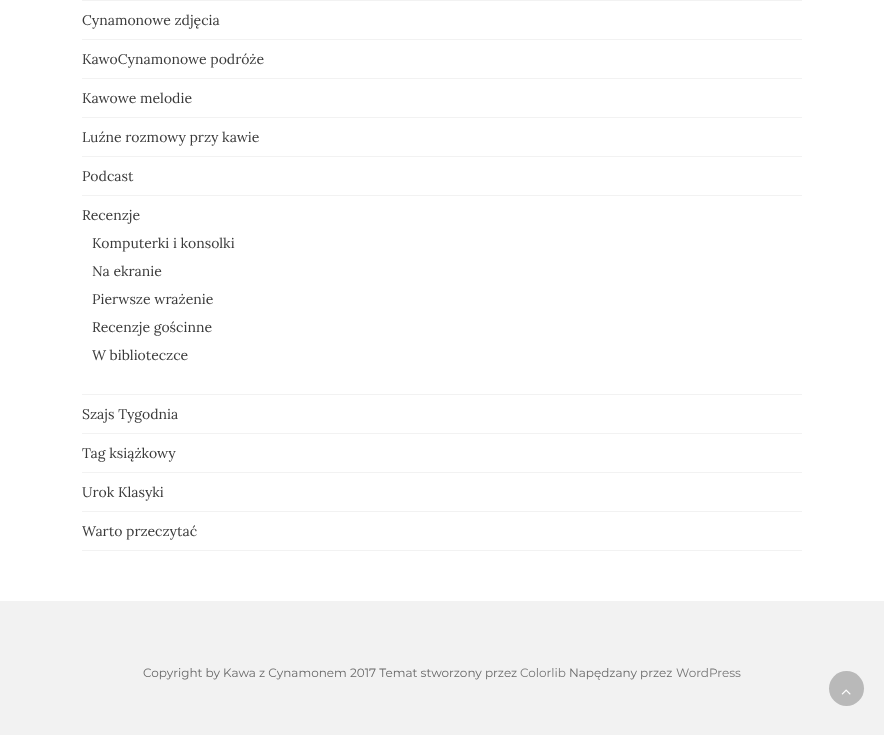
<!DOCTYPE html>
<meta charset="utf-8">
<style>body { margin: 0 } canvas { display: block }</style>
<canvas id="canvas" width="884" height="735"></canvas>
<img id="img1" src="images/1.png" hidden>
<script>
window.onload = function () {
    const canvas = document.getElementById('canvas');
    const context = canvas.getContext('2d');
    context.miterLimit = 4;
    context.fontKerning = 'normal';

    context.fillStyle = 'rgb(255, 255, 255)';
    context.fillRect(0, 0, 884, 735);
    context.fillStyle = 'rgb(242, 242, 242)';
    context.fillRect(82, 0, 720, 1);
    context.fillRect(82, 39, 720, 1);
    context.fillRect(82, 78, 720, 1);
    context.fillRect(82, 117, 720, 1);
    context.fillRect(82, 156, 720, 1);
    context.fillRect(82, 195, 720, 1);
    context.fillRect(82, 394, 720, 1);
    context.fillRect(82, 433, 720, 1);
    context.fillRect(82, 472, 720, 1);
    context.fillRect(82, 511, 720, 1);
    context.fillRect(82, 550, 720, 1);
    context.fillRect(0, 601, 884, 134);
    context.fillStyle = 'rgb(185, 185, 185)';
    context.beginPath();
    context.arc(846.5, 688.5, 17.5, 0, 2 * Math.PI);
    context.fill();
    context.drawImage(document.getElementById('img1'), 841, 689, 10, 6);
    context.font = '14px Lora';
    context.fillStyle = 'rgb(57, 57, 57)';
    context.fillText('Cynamonowe zdjęcia', 82, 25);
    context.fillText('KawoCynamonowe podróże', 82, 64);
    context.fillText('Kawowe melodie', 82, 103);
    context.fillText('Luźne rozmowy przy kawie', 82, 142);
    context.fillText('Podcast', 82, 181);
    context.fillText('Recenzje', 82, 220);
    context.fillText('Komputerki i konsolki', 92, 248);
    context.fillText('Na ekranie', 92, 276);
    context.fillText('Pierwsze wrażenie', 92, 304);
    context.fillText('Recenzje gościnne', 92, 332);
    context.fillText('W biblioteczce', 92, 360);
    context.fillText('Szajs Tygodnia', 82, 419);
    context.fillText('Tag książkowy', 82, 458);
    context.fillText('Urok Klasyki', 82, 497);
    context.fillText('Warto przeczytać', 82, 536);
    context.font = '12px Montserrat';
    context.fillStyle = 'rgb(105, 105, 105)';
    context.fillText('Copyright by Kawa z Cynamonem 2017 Temat stworzony przez', 143, 677);
    context.fillStyle = 'rgb(119, 119, 119)';
    context.fillText('Colorlib', 520, 677);
    context.fillStyle = 'rgb(105, 105, 105)';
    context.fillText('Napędzany przez', 569, 677);
    context.fillStyle = 'rgb(119, 119, 119)';
    context.fillText('WordPress', 676, 677);
};
</script>
